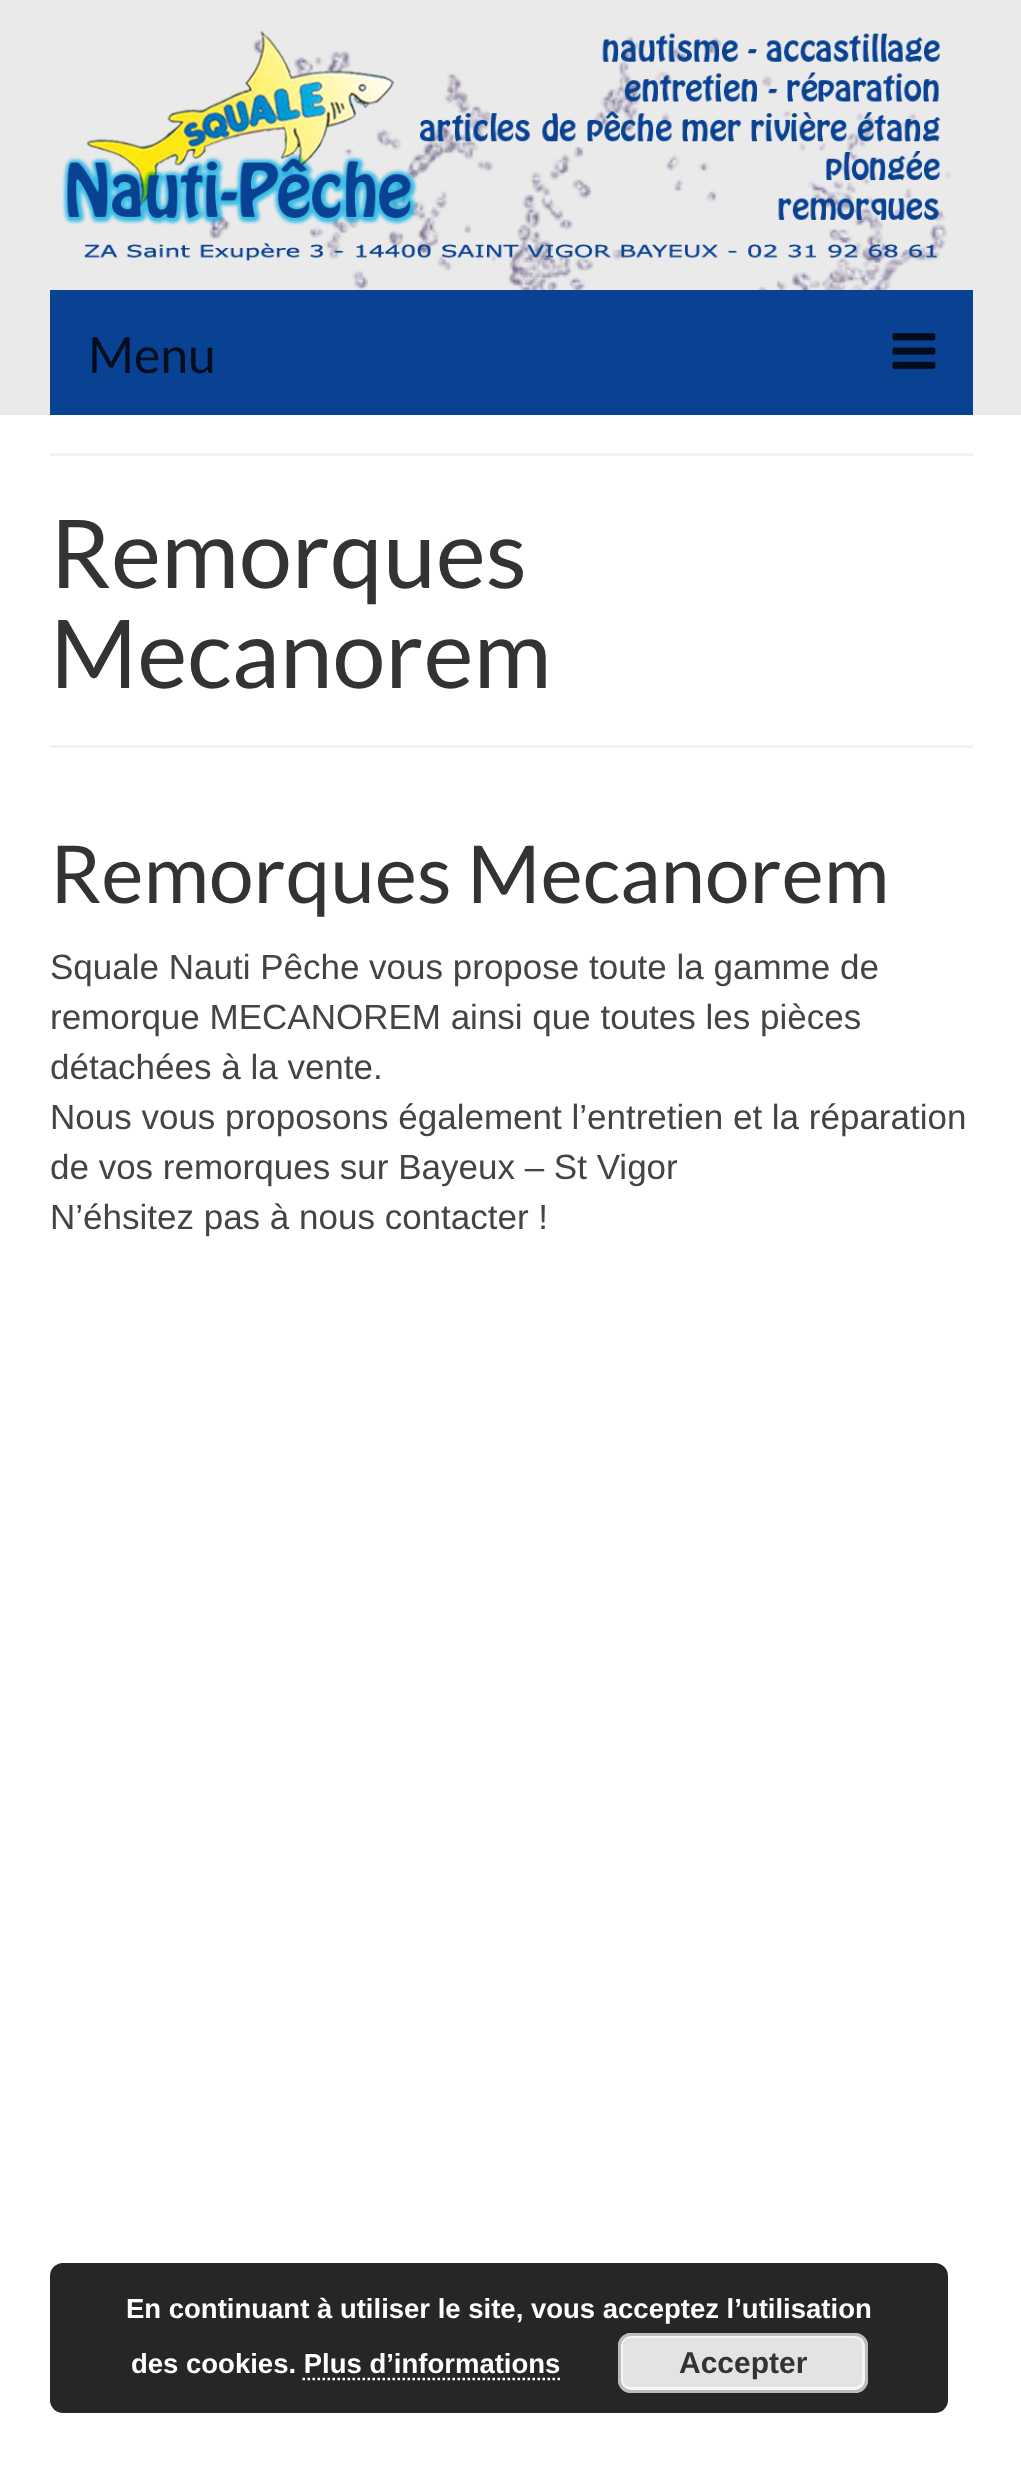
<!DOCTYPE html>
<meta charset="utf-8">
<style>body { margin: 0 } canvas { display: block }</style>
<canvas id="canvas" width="1021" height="2486"></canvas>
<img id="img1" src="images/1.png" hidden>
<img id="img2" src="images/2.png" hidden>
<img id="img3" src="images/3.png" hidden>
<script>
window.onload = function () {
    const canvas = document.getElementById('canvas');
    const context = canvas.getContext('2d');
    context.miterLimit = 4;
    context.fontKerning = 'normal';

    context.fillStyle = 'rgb(255, 255, 255)';
    context.fillRect(0, 0, 1021, 2486);
    context.fillStyle = 'rgb(234, 234, 234)';
    context.fillRect(0, 0, 1021, 415);
    context.drawImage(document.getElementById('img1'), 209, 36, 742, 254);
    context.drawImage(document.getElementById('img2'), 62, 30, 879, 231);
    context.fillStyle = 'rgb(9, 66, 147)';
    context.fillRect(50, 290, 923, 125);
    context.drawImage(document.getElementById('img3'), 892, 333, 44, 36);
    context.fillStyle = 'rgb(242, 242, 242)';
    context.fillRect(50, 453, 923, 3);
    context.fillRect(50, 745, 923, 3);
    context.fillStyle = 'rgb(38, 38, 38)';
    context.beginPath();
    context.roundRect(50, 2263, 898, 150, 13);
    context.fill();
    context.fillStyle = 'rgb(227, 227, 227)';
    context.beginPath();
    context.roundRect(618, 2333, 250, 60, 13);
    context.fill();
    context.beginPath();
    context.roundRect(621.5, 2336.5, 242, 52, 8.5);
    context.strokeStyle = 'rgb(246, 246, 246)';
    context.lineWidth = 3;
    context.stroke();
    context.beginPath();
    context.roundRect(619.5, 2334.5, 247, 57, 11.5);
    context.strokeStyle = 'rgb(187, 187, 187)';
    context.stroke();
    context.beginPath();
    context.moveTo(302.5, 2379);
    context.lineTo(560, 2379);
    context.strokeStyle = 'rgb(255, 255, 255)';
    context.lineWidth = 2.5;
    context.setLineDash([2.5, 2.5]);
    context.stroke();
    context.font = '50px Lato';
    context.fillStyle = 'rgb(2, 13, 29)';
    context.fillText('Menu', 88, 373);
    context.font = '95px Lato';
    context.fillStyle = 'rgb(51, 51, 51)';
    context.fillText('Remorques', 50, 588);
    context.fillText('Mecanorem', 50, 688);
    context.font = '80px Lato';
    context.fillText('Remorques Mecanorem', 50, 903);
    context.font = '35px Liberation Sans';
    context.fillStyle = 'rgb(68, 68, 68)';
    context.fillText('Squale Nauti Pêche vous propose toute la gamme de', 50, 979);
    context.fillText('remorque MECANOREM ainsi que toutes les pièces', 50, 1029);
    context.fillText('détachées à la vente.', 50, 1079);
    context.fillText('Nous vous proposons également l’entretien et la réparation', 50, 1129);
    context.fillText('de vos remorques sur Bayeux – St Vigor', 50, 1179);
    context.fillText('N’éhsitez pas à nous contacter !', 50, 1229);
    context.font = 'bold 27.5px Liberation Sans';
    context.fillStyle = 'rgb(255, 255, 255)';
    context.fillText('En continuant à utiliser le site, vous acceptez l’utilisation', 126, 2318);
    context.fillText('des cookies. Plus d’informations', 131, 2373);
    context.font = 'bold 30px Liberation Sans';
    context.fillStyle = 'rgb(51, 51, 51)';
    context.fillText('Accepter', 679, 2373);
};
</script>
